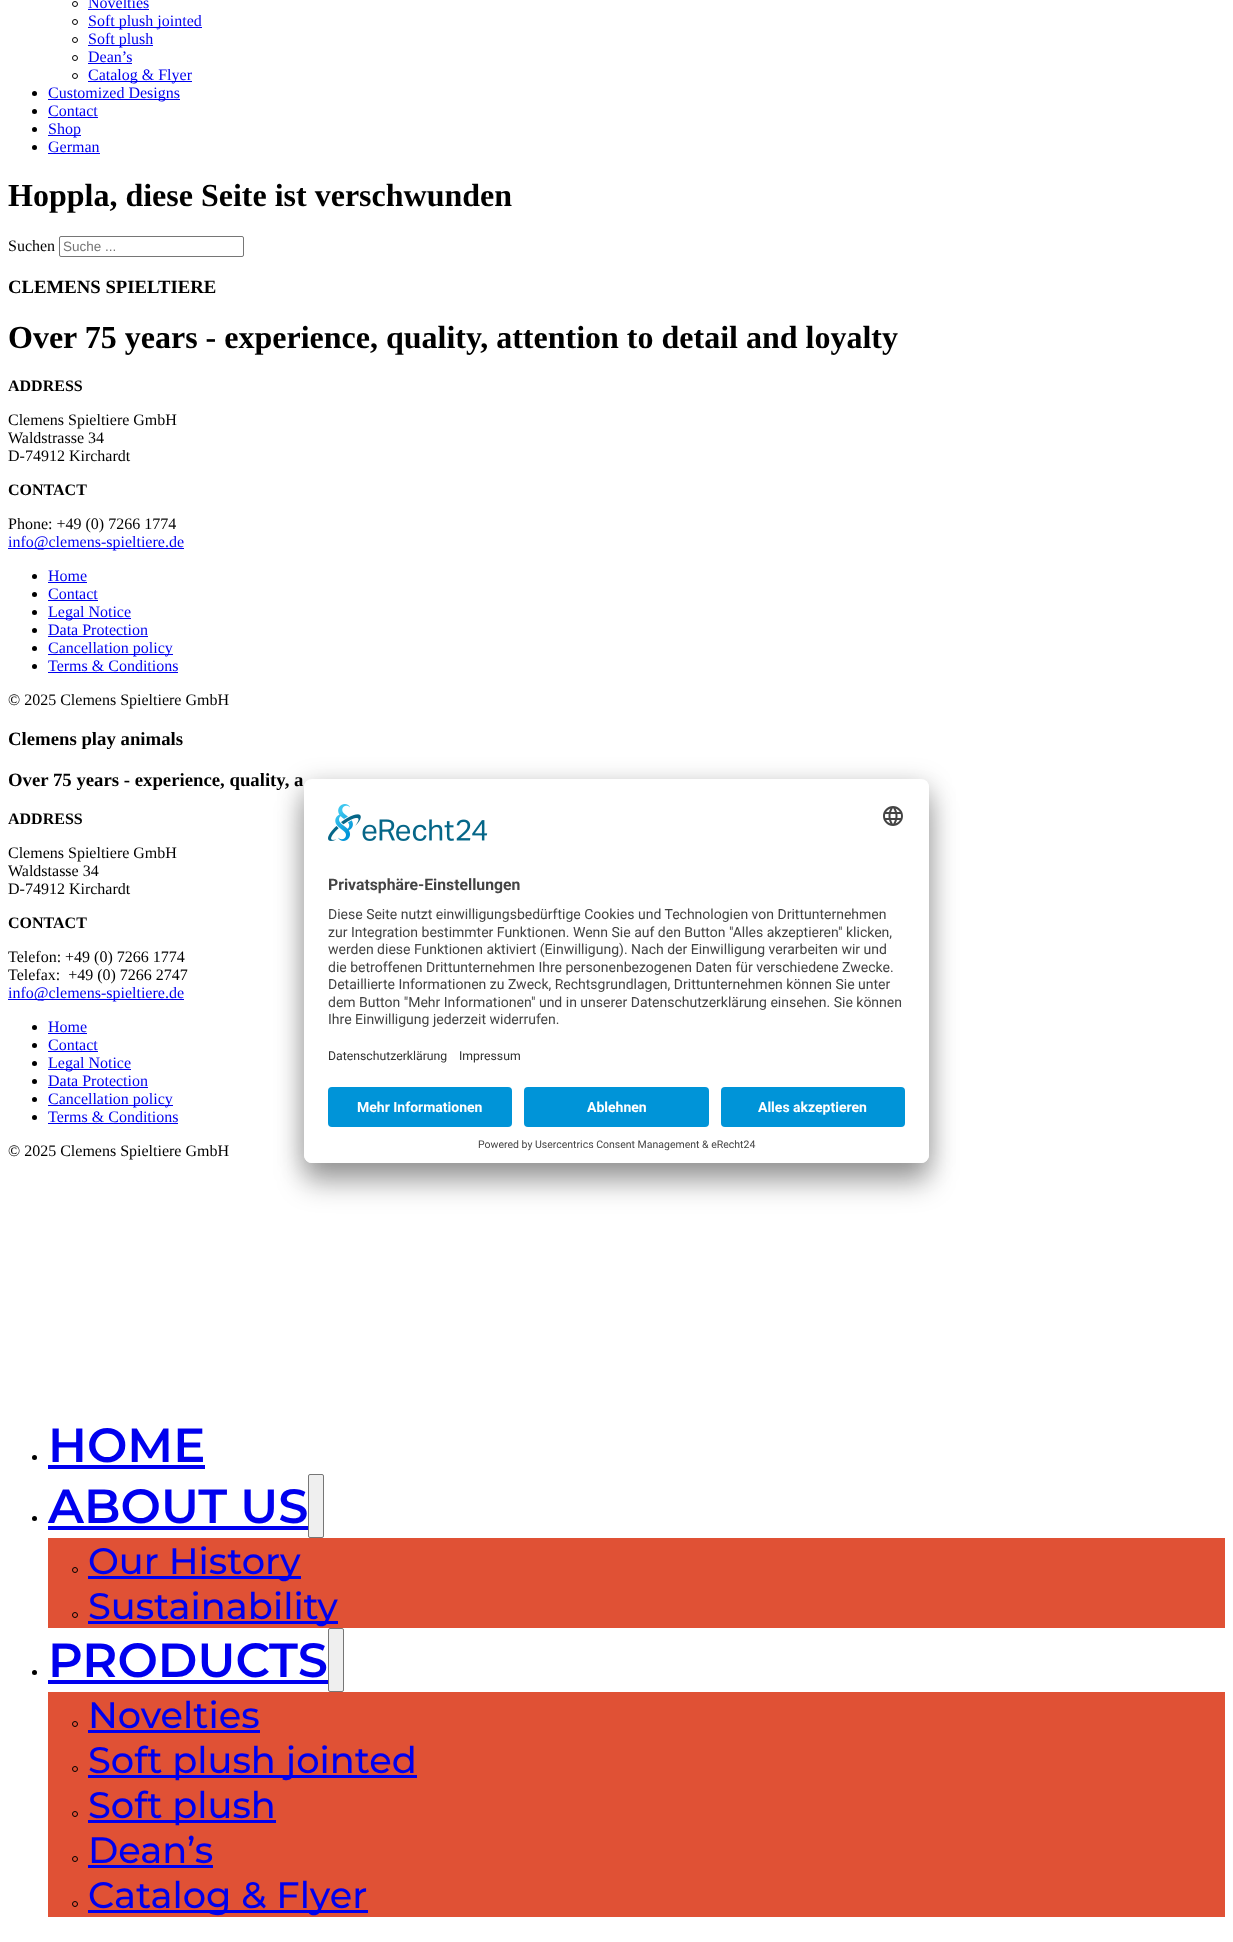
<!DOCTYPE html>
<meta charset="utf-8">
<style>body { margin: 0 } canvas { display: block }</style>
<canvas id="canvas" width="1233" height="1942"></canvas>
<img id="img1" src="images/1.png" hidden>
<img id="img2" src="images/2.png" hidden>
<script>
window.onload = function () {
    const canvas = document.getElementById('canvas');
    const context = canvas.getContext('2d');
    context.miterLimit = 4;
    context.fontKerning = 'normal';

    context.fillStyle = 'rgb(255, 255, 255)';
    context.fillRect(0, 0, 1233, 1942);
    context.beginPath();
    context.arc(75, 4, 2.5, 0, 2 * Math.PI);
    context.strokeStyle = 'rgb(0, 0, 0)';
    context.stroke();
    context.fillStyle = 'rgb(0, 0, 238)';
    context.fillRect(88, 9, 61, 1);
    context.beginPath();
    context.arc(75, 22, 2.5, 0, 2 * Math.PI);
    context.stroke();
    context.fillRect(88, 27, 114, 1);
    context.beginPath();
    context.arc(75, 40, 2.5, 0, 2 * Math.PI);
    context.stroke();
    context.fillRect(88, 45, 65, 1);
    context.beginPath();
    context.arc(75, 58, 2.5, 0, 2 * Math.PI);
    context.stroke();
    context.fillRect(88, 63, 44, 1);
    context.beginPath();
    context.arc(75, 76, 2.5, 0, 2 * Math.PI);
    context.stroke();
    context.fillRect(88, 81, 104, 1);
    context.fillStyle = 'rgb(0, 0, 0)';
    context.beginPath();
    context.arc(34.5, 93.5, 2.5, 0, 2 * Math.PI);
    context.fill();
    context.fillStyle = 'rgb(0, 0, 238)';
    context.fillRect(48, 99, 132, 1);
    context.fillStyle = 'rgb(0, 0, 0)';
    context.beginPath();
    context.arc(34.5, 111.5, 2.5, 0, 2 * Math.PI);
    context.fill();
    context.fillStyle = 'rgb(0, 0, 238)';
    context.fillRect(48, 117, 50, 1);
    context.fillStyle = 'rgb(0, 0, 0)';
    context.beginPath();
    context.arc(34.5, 129.5, 2.5, 0, 2 * Math.PI);
    context.fill();
    context.fillStyle = 'rgb(0, 0, 238)';
    context.fillRect(48, 135, 33, 1);
    context.fillStyle = 'rgb(0, 0, 0)';
    context.beginPath();
    context.arc(34.5, 147.5, 2.5, 0, 2 * Math.PI);
    context.fill();
    context.fillStyle = 'rgb(0, 0, 238)';
    context.fillRect(48, 153, 52, 1);
    context.beginPath();
    context.roundRect(59.5, 236.5, 184, 20, 1.5);
    context.strokeStyle = 'rgb(118, 118, 118)';
    context.stroke();
    context.fillRect(8, 548, 176, 1);
    context.fillStyle = 'rgb(0, 0, 0)';
    context.beginPath();
    context.arc(34.5, 576.5, 2.5, 0, 2 * Math.PI);
    context.fill();
    context.fillStyle = 'rgb(0, 0, 238)';
    context.fillRect(48, 582, 39, 1);
    context.fillStyle = 'rgb(0, 0, 0)';
    context.beginPath();
    context.arc(34.5, 594.5, 2.5, 0, 2 * Math.PI);
    context.fill();
    context.fillStyle = 'rgb(0, 0, 238)';
    context.fillRect(48, 600, 50, 1);
    context.fillStyle = 'rgb(0, 0, 0)';
    context.beginPath();
    context.arc(34.5, 612.5, 2.5, 0, 2 * Math.PI);
    context.fill();
    context.fillStyle = 'rgb(0, 0, 238)';
    context.fillRect(48, 618, 83, 1);
    context.fillStyle = 'rgb(0, 0, 0)';
    context.beginPath();
    context.arc(34.5, 630.5, 2.5, 0, 2 * Math.PI);
    context.fill();
    context.fillStyle = 'rgb(0, 0, 238)';
    context.fillRect(48, 636, 100, 1);
    context.fillStyle = 'rgb(0, 0, 0)';
    context.beginPath();
    context.arc(34.5, 648.5, 2.5, 0, 2 * Math.PI);
    context.fill();
    context.fillStyle = 'rgb(0, 0, 238)';
    context.fillRect(48, 654, 125, 1);
    context.fillStyle = 'rgb(0, 0, 0)';
    context.beginPath();
    context.arc(34.5, 666.5, 2.5, 0, 2 * Math.PI);
    context.fill();
    context.fillStyle = 'rgb(0, 0, 238)';
    context.fillRect(48, 672, 130, 1);
    context.fillRect(8, 999, 176, 1);
    context.fillStyle = 'rgb(0, 0, 0)';
    context.beginPath();
    context.arc(34.5, 1027.5, 2.5, 0, 2 * Math.PI);
    context.fill();
    context.fillStyle = 'rgb(0, 0, 238)';
    context.fillRect(48, 1033, 39, 1);
    context.fillStyle = 'rgb(0, 0, 0)';
    context.beginPath();
    context.arc(34.5, 1045.5, 2.5, 0, 2 * Math.PI);
    context.fill();
    context.fillStyle = 'rgb(0, 0, 238)';
    context.fillRect(48, 1051, 50, 1);
    context.fillStyle = 'rgb(0, 0, 0)';
    context.beginPath();
    context.arc(34.5, 1063.5, 2.5, 0, 2 * Math.PI);
    context.fill();
    context.fillStyle = 'rgb(0, 0, 238)';
    context.fillRect(48, 1069, 83, 1);
    context.fillStyle = 'rgb(0, 0, 0)';
    context.beginPath();
    context.arc(34.5, 1081.5, 2.5, 0, 2 * Math.PI);
    context.fill();
    context.fillStyle = 'rgb(0, 0, 238)';
    context.fillRect(48, 1087, 100, 1);
    context.fillStyle = 'rgb(0, 0, 0)';
    context.beginPath();
    context.arc(34.5, 1099.5, 2.5, 0, 2 * Math.PI);
    context.fill();
    context.fillStyle = 'rgb(0, 0, 238)';
    context.fillRect(48, 1105, 125, 1);
    context.fillStyle = 'rgb(0, 0, 0)';
    context.beginPath();
    context.arc(34.5, 1117.5, 2.5, 0, 2 * Math.PI);
    context.fill();
    context.fillStyle = 'rgb(0, 0, 238)';
    context.fillRect(48, 1123, 130, 1);
    context.fillStyle = 'rgba(0, 0, 0, 0.3)';
    context.filter = 'blur(14px)';
    context.beginPath();
    context.roundRect(304, 799, 625, 384, 8);
    context.fill();
    context.filter = 'none';
    context.fillStyle = 'rgba(0, 0, 0, 0.22)';
    context.filter = 'blur(13px)';
    context.beginPath();
    context.roundRect(304, 784, 625, 384, 8);
    context.fill();
    context.filter = 'none';
    context.fillStyle = 'rgb(255, 255, 255)';
    context.beginPath();
    context.roundRect(304, 779, 625, 384, 8);
    context.fill();
    context.save();
    context.beginPath();
    context.roundRect(304, 779, 625, 384, 8);
    context.clip();
    context.beginPath();
    context.roundRect(304, 779, 625, 300, [8, 8, 0, 0]);
    context.clip();
    context.fillRect(304, 780, 625, 299);
    context.restore();
    context.drawImage(document.getElementById('img1'), 328, 804, 160, 37);
    context.drawImage(document.getElementById('img2'), 883, 806, 20, 20);
    context.beginPath();
    context.roundRect(304, 1079, 625, 84, [0, 0, 8, 8]);
    context.fill();
    context.fillStyle = 'rgb(0, 148, 216)';
    context.beginPath();
    context.roundRect(328, 1087, 184, 40, 4);
    context.fill();
    context.beginPath();
    context.roundRect(524, 1087, 185, 40, 4);
    context.fill();
    context.beginPath();
    context.roundRect(721, 1087, 184, 40, 4);
    context.fill();
    context.fillStyle = 'rgb(0, 0, 0)';
    context.beginPath();
    context.arc(34.5, 1457.5, 2.5, 0, 2 * Math.PI);
    context.fill();
    context.fillStyle = 'rgb(0, 0, 238)';
    context.fillRect(48, 1465, 157, 4);
    context.fillStyle = 'rgb(0, 0, 0)';
    context.beginPath();
    context.arc(34.5, 1518.5, 2.5, 0, 2 * Math.PI);
    context.fill();
    context.fillStyle = 'rgb(0, 0, 238)';
    context.fillRect(48, 1526, 260, 4);
    context.fillStyle = 'rgb(239, 239, 239)';
    context.beginPath();
    context.roundRect(308.5, 1474.5, 15, 63, 1.5);
    context.fill();
    context.stroke();
    context.fillStyle = 'rgb(224, 81, 53)';
    context.fillRect(48, 1538, 1177, 90);
    context.beginPath();
    context.arc(75, 1570, 2.5, 0, 2 * Math.PI);
    context.strokeStyle = 'rgb(0, 0, 0)';
    context.stroke();
    context.fillStyle = 'rgb(0, 0, 238)';
    context.fillRect(88, 1576, 213, 3);
    context.beginPath();
    context.arc(75, 1615, 2.5, 0, 2 * Math.PI);
    context.stroke();
    context.fillRect(88, 1621, 250, 3);
    context.fillStyle = 'rgb(0, 0, 0)';
    context.beginPath();
    context.arc(34.5, 1672.5, 2.5, 0, 2 * Math.PI);
    context.fill();
    context.fillStyle = 'rgb(0, 0, 238)';
    context.fillRect(48, 1680, 280, 4);
    context.fillStyle = 'rgb(239, 239, 239)';
    context.beginPath();
    context.roundRect(328.5, 1628.5, 15, 63, 1.5);
    context.fill();
    context.strokeStyle = 'rgb(118, 118, 118)';
    context.stroke();
    context.fillStyle = 'rgb(224, 81, 53)';
    context.fillRect(48, 1692, 1177, 225);
    context.beginPath();
    context.arc(75, 1724, 2.5, 0, 2 * Math.PI);
    context.strokeStyle = 'rgb(0, 0, 0)';
    context.stroke();
    context.fillStyle = 'rgb(0, 0, 238)';
    context.fillRect(88, 1730, 172, 3);
    context.beginPath();
    context.arc(75, 1769, 2.5, 0, 2 * Math.PI);
    context.stroke();
    context.fillRect(88, 1775, 329, 3);
    context.beginPath();
    context.arc(75, 1814, 2.5, 0, 2 * Math.PI);
    context.stroke();
    context.fillRect(88, 1820, 188, 3);
    context.beginPath();
    context.arc(75, 1859, 2.5, 0, 2 * Math.PI);
    context.stroke();
    context.fillRect(88, 1865, 125, 3);
    context.beginPath();
    context.arc(75, 1904, 2.5, 0, 2 * Math.PI);
    context.stroke();
    context.fillRect(88, 1910, 280, 3);
    context.font = '16px Liberation Serif';
    context.fillText('Novelties', 88, 8);
    context.fillText('Soft plush jointed', 88, 26);
    context.fillText('Soft plush', 88, 44);
    context.fillText('Dean’s', 88, 62);
    context.fillText('Catalog & Flyer', 88, 80);
    context.fillText('Customized Designs', 48, 98);
    context.fillText('Contact', 48, 116);
    context.fillText('Shop', 48, 134);
    context.fillText('German', 48, 152);
    context.font = 'bold 32px Liberation Serif';
    context.fillStyle = 'rgb(0, 0, 0)';
    context.fillText('Hoppla, diese Seite ist verschwunden', 8, 206);
    context.font = '16px Liberation Serif';
    context.fillText('Suchen', 8, 251);
    context.font = '13.5px Liberation Sans';
    context.fillStyle = 'rgb(117, 117, 117)';
    context.fillText('Suche ...', 63, 251);
    context.font = 'bold 18.75px Liberation Serif';
    context.fillStyle = 'rgb(0, 0, 0)';
    context.fillText('CLEMENS SPIELTIERE', 8, 293);
    context.font = 'bold 32px Liberation Serif';
    context.fillText('Over 75 years - experience, quality, attention to detail and loyalty', 8, 348);
    context.font = 'bold 16px Liberation Serif';
    context.fillText('ADDRESS', 8, 391);
    context.font = '16px Liberation Serif';
    context.fillText('Clemens Spieltiere GmbH', 8, 425);
    context.fillText('Waldstrasse 34', 8, 443);
    context.fillText('D-74912 Kirchardt', 8, 461);
    context.font = 'bold 16px Liberation Serif';
    context.fillText('CONTACT', 8, 495);
    context.font = '16px Liberation Serif';
    context.fillText('Phone: +49 (0) 7266 1774', 8, 529);
    context.fillStyle = 'rgb(0, 0, 238)';
    context.fillText('info@clemens-spieltiere.de', 8, 547);
    context.fillText('Home', 48, 581);
    context.fillText('Contact', 48, 599);
    context.fillText('Legal Notice', 48, 617);
    context.fillText('Data Protection', 48, 635);
    context.fillText('Cancellation policy', 48, 653);
    context.fillText('Terms & Conditions', 48, 671);
    context.fillStyle = 'rgb(0, 0, 0)';
    context.fillText('© 2025 Clemens Spieltiere GmbH', 8, 705);
    context.font = 'bold 18.75px Liberation Serif';
    context.fillText('Clemens play animals', 8, 745);
    context.fillText('Over 75 years - experience, quality, a', 8, 786);
    context.font = 'bold 16px Liberation Serif';
    context.fillText('ADDRESS', 8, 824);
    context.font = '16px Liberation Serif';
    context.fillText('Clemens Spieltiere GmbH', 8, 858);
    context.fillText('Waldstasse 34', 8, 876);
    context.fillText('D-74912 Kirchardt', 8, 894);
    context.font = 'bold 16px Liberation Serif';
    context.fillText('CONTACT', 8, 928);
    context.font = '16px Liberation Serif';
    context.fillText('Telefon: +49 (0) 7266 1774', 8, 962);
    context.fillText('Telefax:  +49 (0) 7266 2747', 8, 980);
    context.fillStyle = 'rgb(0, 0, 238)';
    context.fillText('info@clemens-spieltiere.de', 8, 998);
    context.fillText('Home', 48, 1032);
    context.fillText('Contact', 48, 1050);
    context.fillText('Legal Notice', 48, 1068);
    context.fillText('Data Protection', 48, 1086);
    context.fillText('Cancellation policy', 48, 1104);
    context.fillText('Terms & Conditions', 48, 1122);
    context.fillStyle = 'rgb(0, 0, 0)';
    context.fillText('© 2025 Clemens Spieltiere GmbH', 8, 1156);
    context.font = 'bold 15.75px Roboto';
    context.fillStyle = 'rgb(68, 68, 68)';
    context.fillText('Privatsphäre-Einstellungen', 328, 890);
    context.font = '14px Roboto';
    context.fillText('Diese Seite nutzt einwilligungsbedürftige Cookies und Technologien von Drittunternehmen', 328, 919);
    context.fillText('zur Integration bestimmter Funktionen. Wenn Sie auf den Button "Alles akzeptieren" klicken,', 328, 937);
    context.fillText('werden diese Funktionen aktiviert (Einwilligung). Nach der Einwilligung verarbeiten wir und', 328, 954);
    context.fillText('die betroffenen Drittunternehmen Ihre personenbezogenen Daten für verschiedene Zwecke.', 328, 972);
    context.fillText('Detaillierte Informationen zu Zweck, Rechtsgrundlagen, Drittunternehmen können Sie unter', 328, 989);
    context.fillText('dem Button "Mehr Informationen" und in unserer Datenschutzerklärung einsehen. Sie können', 328, 1007);
    context.fillText('Ihre Einwilligung jederzeit widerrufen.', 328, 1024);
    context.font = '12.25px Roboto';
    context.fillStyle = 'rgb(48, 48, 48)';
    context.fillText('Datenschutzerklärung', 328, 1060);
    context.fillText('Impressum', 459, 1060);
    context.font = 'bold 14px Roboto';
    context.fillStyle = 'rgb(255, 255, 255)';
    context.fillText('Mehr Informationen', 357, 1112);
    context.fillText('Ablehnen', 587, 1112);
    context.fillText('Alles akzeptieren', 758, 1112);
    context.font = '10.5px Roboto';
    context.fillStyle = 'rgb(68, 68, 68)';
    context.fillText('Powered by Usercentrics Consent Management & eRecht24', 478, 1148);
    context.font = '600 48px Montserrat';
    context.fillStyle = 'rgb(0, 0, 238)';
    context.fillText('HOME', 48, 1462);
    context.fillText('ABOUT US', 48, 1523);
    context.font = '500 36.75px Montserrat';
    context.fillText('Our History', 88, 1574);
    context.fillText('Sustainability', 88, 1619);
    context.font = '600 48px Montserrat';
    context.fillText('PRODUCTS', 48, 1677);
    context.font = '500 36.75px Montserrat';
    context.fillText('Novelties', 88, 1728);
    context.fillText('Soft plush jointed', 88, 1773);
    context.fillText('Soft plush', 88, 1818);
    context.fillText('Dean’s', 88, 1863);
    context.fillText('Catalog & Flyer', 88, 1908);
};
</script>
